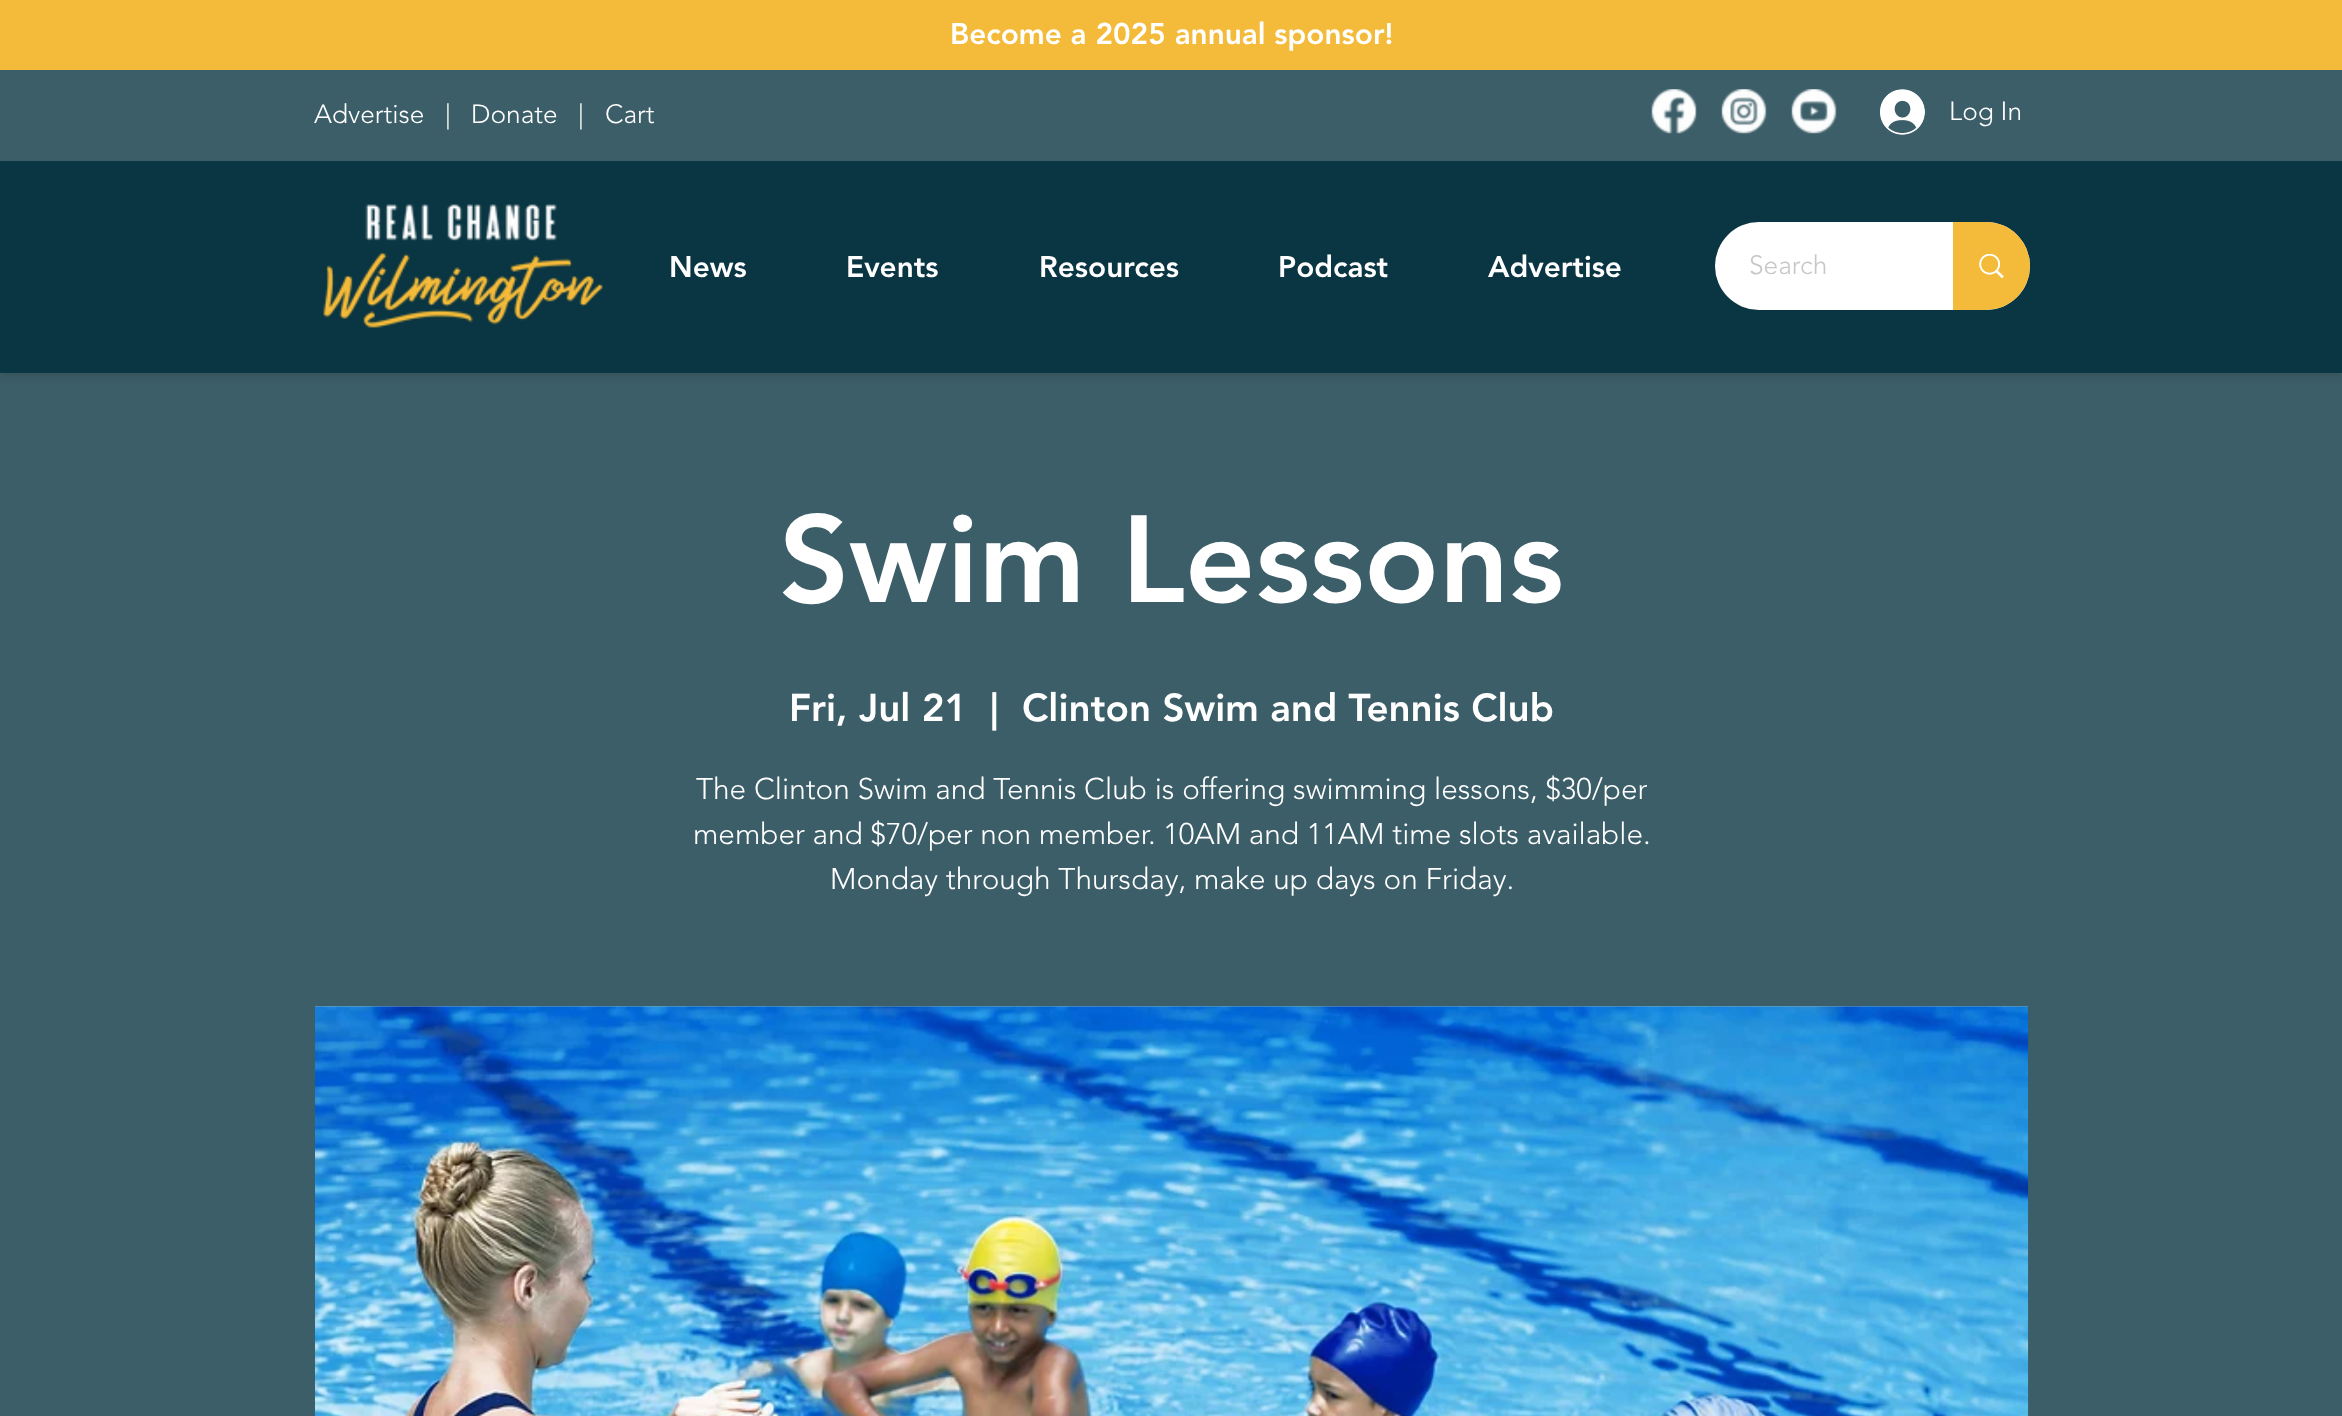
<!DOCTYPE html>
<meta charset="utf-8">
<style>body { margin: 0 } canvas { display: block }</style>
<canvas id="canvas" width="2342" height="1416"></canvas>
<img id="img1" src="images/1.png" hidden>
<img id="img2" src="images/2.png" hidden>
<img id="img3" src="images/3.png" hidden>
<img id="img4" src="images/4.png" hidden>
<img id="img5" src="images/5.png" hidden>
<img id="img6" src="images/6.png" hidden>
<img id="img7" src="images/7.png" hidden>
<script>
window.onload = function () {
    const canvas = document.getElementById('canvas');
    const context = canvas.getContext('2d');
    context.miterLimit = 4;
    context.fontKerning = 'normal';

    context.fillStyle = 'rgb(60, 94, 104)';
    context.fillRect(0, 0, 2342, 1416);
    context.fillStyle = 'rgba(0, 0, 0, 0.2)';
    context.filter = 'blur(6px)';
    context.beginPath();
    context.rect(0, 0, 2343, 373);
    context.fill();
    context.filter = 'none';
    context.fillStyle = 'rgb(244, 187, 58)';
    context.fillRect(0, 0, 2342, 70);
    context.fillStyle = 'rgb(60, 94, 104)';
    context.fillRect(0, 70, 2342, 91);
    context.drawImage(document.getElementById('img1'), 1651, 89, 46, 45);
    context.drawImage(document.getElementById('img2'), 1721, 89, 46, 45);
    context.drawImage(document.getElementById('img3'), 1791, 89, 46, 45);
    context.drawImage(document.getElementById('img4'), 1880, 89, 45, 46);
    context.fillStyle = 'rgb(10, 53, 66)';
    context.fillRect(0, 161, 2342, 212);
    context.drawImage(document.getElementById('img5'), 323, 204, 280, 124);
    context.fillStyle = 'rgb(255, 255, 255)';
    context.beginPath();
    context.roundRect(1715, 222, 315, 88, 44);
    context.fill();
    context.fillStyle = 'rgb(244, 187, 58)';
    context.beginPath();
    context.roundRect(1953, 222, 77, 88, [0, 44, 44, 0]);
    context.fill();
    context.drawImage(document.getElementById('img6'), 1979, 254, 25, 24);
    context.fillStyle = 'rgb(141, 171, 179)';
    context.fillRect(315, 1006, 1713, 1);
    context.drawImage(document.getElementById('img7'), 315, 1006, 1714, 410);
    context.font = '900 29.75px "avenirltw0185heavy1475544"';
    context.fillStyle = 'rgb(255, 255, 255)';
    context.fillText('Become a 2025 annual sponsor!', 950, 44);
    context.font = '300 26.25px "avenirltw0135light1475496"';
    context.fillText('Advertise', 314, 123);
    context.fillText('|', 445, 123);
    context.fillText('Donate', 471, 123);
    context.fillText('|', 578, 123);
    context.fillText('Cart', 605, 123);
    context.fillText('Log In', 1949, 120);
    context.font = '900 29.75px "avenirltw0185heavy1475544"';
    context.fillText('News', 669, 277);
    context.fillText('Events', 846, 277);
    context.fillText('Resources', 1039, 277);
    context.fillText('Podcast', 1278, 277);
    context.fillText('Advertise', 1488, 277);
    context.font = '300 26.25px "avenirltw0135light1475496"';
    context.fillStyle = 'rgb(199, 199, 199)';
    context.fillText('Search', 1749, 274);
    context.font = '900 122.5px "avenirltw0185heavy1475544"';
    context.fillStyle = 'rgb(255, 255, 255)';
    context.fillText('Swim Lessons', 779, 602);
    context.font = '900 38.5px "avenirltw0185heavy1475544"';
    context.fillText('Fri, Jul 21', 789, 721);
    context.fillText('|', 990, 721);
    context.fillText('Clinton Swim and Tennis Club', 1022, 721);
    context.font = '300 29.75px "avenirltw0135light1475496"';
    context.fillText('The Clinton Swim and Tennis Club is offering swimming lessons, $30/per', 696, 799);
    context.fillText('member and $70/per non member. 10AM and 11AM time slots available.', 693, 844);
    context.fillText('Monday through Thursday, make up days on Friday.', 830, 889);
};
</script>
